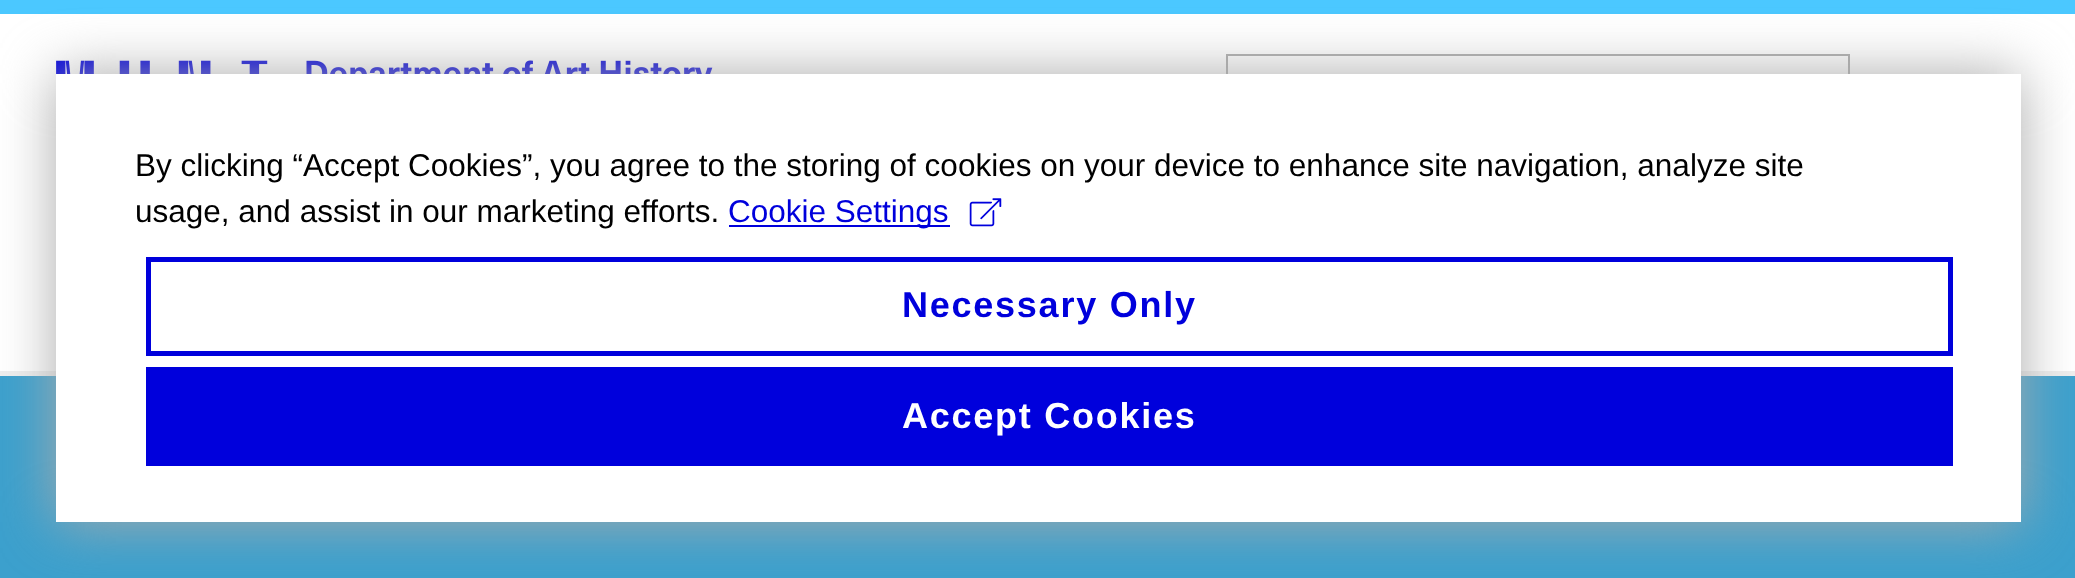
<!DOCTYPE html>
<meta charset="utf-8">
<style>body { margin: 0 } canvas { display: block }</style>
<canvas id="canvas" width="2075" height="578"></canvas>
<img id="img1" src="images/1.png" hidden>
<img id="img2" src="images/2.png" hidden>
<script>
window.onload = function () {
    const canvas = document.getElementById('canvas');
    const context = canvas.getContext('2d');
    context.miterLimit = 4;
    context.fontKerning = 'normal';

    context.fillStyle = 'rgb(255, 255, 255)';
    context.fillRect(0, 0, 2075, 578);
    context.fillStyle = 'rgb(75, 200, 255)';
    context.fillRect(0, 0, 2075, 14);
    context.fillStyle = 'rgb(238, 238, 238)';
    context.fillRect(0, 371, 2075, 5);
    context.drawImage(document.getElementById('img1'), 56, 60, 657, 14);
    context.strokeStyle = 'rgb(170, 170, 170)';
    context.lineWidth = 2;
    context.strokeRect(1227, 55, 622, 97);
    context.fillStyle = 'rgb(60, 160, 205)';
    context.fillRect(0, 376, 2075, 202);
    context.fillStyle = 'rgb(170, 170, 170)';
    context.filter = 'blur(28px)';
    context.beginPath();
    context.rect(56, 74, 1965, 448);
    context.fill();
    context.filter = 'none';
    context.fillStyle = 'rgb(255, 255, 255)';
    context.fillRect(56, 74, 1965, 448);
    context.fillStyle = 'rgb(0, 0, 220)';
    context.fillRect(729, 225, 221, 2);
    context.drawImage(document.getElementById('img2'), 969, 198, 33, 29);
    context.strokeStyle = 'rgb(0, 0, 220)';
    context.lineWidth = 5;
    context.strokeRect(148.5, 259.5, 1802, 94);
    context.fillRect(146, 367, 1807, 99);
    context.font = '31.5px Liberation Sans';
    context.fillStyle = 'rgb(0, 0, 0)';
    context.fillText('By clicking “Accept Cookies”, you agree to the storing of cookies on your device to enhance site navigation, analyze site', 135, 176);
    context.fillText('usage, and assist in our marketing efforts.', 135, 222);
    context.fillStyle = 'rgb(0, 0, 220)';
    context.fillText('Cookie Settings', 728, 222);
    context.letterSpacing = '1.75px';
    context.font = 'bold 36px Liberation Sans';
    context.fillText('Necessary Only', 902, 317);
    context.fillStyle = 'rgb(255, 255, 255)';
    context.fillText('Accept Cookies', 902, 428);
};
</script>
